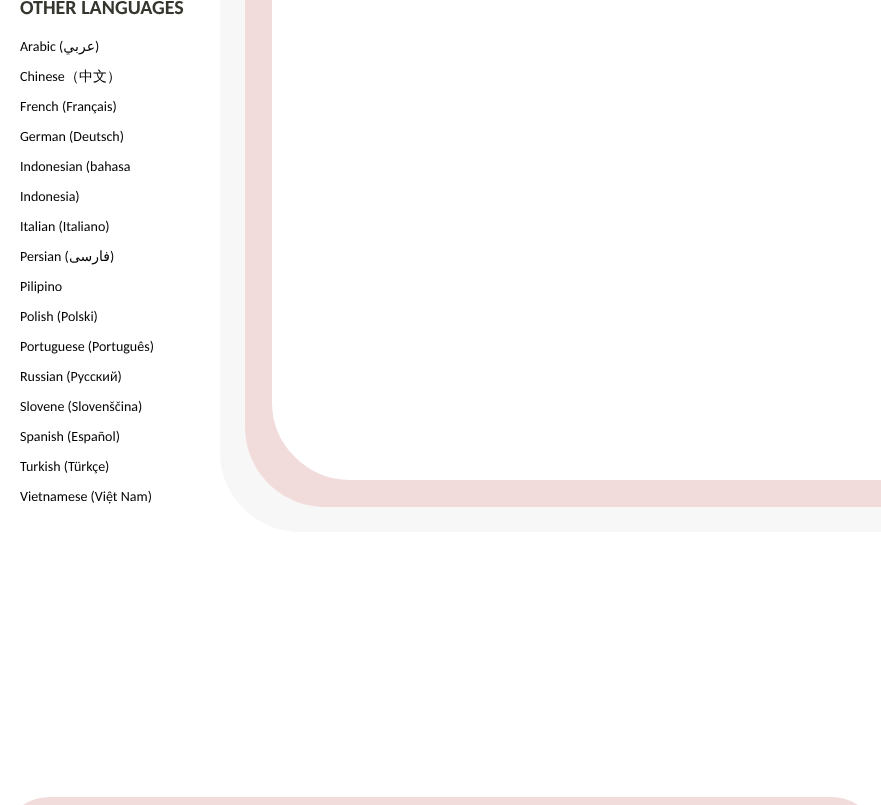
<!DOCTYPE html>
<meta charset="utf-8">
<style>body { margin: 0 } canvas { display: block }</style>
<canvas id="canvas" width="881" height="805"></canvas>
<script>
window.onload = function () {
    const canvas = document.getElementById('canvas');
    const context = canvas.getContext('2d');
    context.miterLimit = 4;
    context.fontKerning = 'normal';

    context.fillStyle = 'rgb(255, 255, 255)';
    context.fillRect(0, 0, 881, 805);
    context.fillStyle = 'rgb(247, 247, 247)';
    context.beginPath();
    context.moveTo(300, -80);
    context.lineTo(881, -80);
    context.lineTo(881, 532);
    context.lineTo(300, 532);
    context.bezierCurveTo(256, 532, 220, 496, 220, 452);
    context.lineTo(220, 0);
    context.bezierCurveTo(220, -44, 256, -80, 300, -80);
    context.closePath();
    context.fill();
    context.fillStyle = 'rgb(242, 220, 219)';
    context.beginPath();
    context.moveTo(325, -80);
    context.lineTo(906, -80);
    context.lineTo(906, 507);
    context.lineTo(325, 507);
    context.bezierCurveTo(281, 507, 245, 471, 245, 427);
    context.lineTo(245, 0);
    context.bezierCurveTo(245, -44, 281, -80, 325, -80);
    context.closePath();
    context.fill();
    context.fillStyle = 'rgb(255, 255, 255)';
    context.beginPath();
    context.moveTo(350, -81);
    context.lineTo(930, -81);
    context.lineTo(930, 481);
    context.lineTo(350, 481);
    context.bezierCurveTo(306.5, 481, 271, 445.5, 271, 402);
    context.lineTo(271, -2);
    context.bezierCurveTo(271, -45.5, 306.5, -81, 350, -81);
    context.closePath();
    context.fill();
    context.strokeStyle = 'rgb(242, 220, 219)';
    context.lineWidth = 2;
    context.stroke();
    context.fillStyle = 'rgb(242, 220, 219)';
    context.beginPath();
    context.moveTo(50, 797);
    context.lineTo(831, 797);
    context.bezierCurveTo(858.5, 797, 881, 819.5, 881, 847);
    context.lineTo(881, 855);
    context.lineTo(0, 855);
    context.lineTo(0, 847);
    context.bezierCurveTo(0, 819.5, 22.5, 797, 50, 797);
    context.closePath();
    context.fill();
    context.font = 'bold 20px Carlito';
    context.fillStyle = 'rgb(52, 55, 46)';
    context.fillText('OTHER LANGUAGES', 20, 14);
    context.font = '14px Carlito';
    context.fillStyle = 'rgb(0, 0, 0)';
    context.fillText('Arabic (', 20, 51);
    context.direction = 'rtl';
    context.font = '14px DejaVu Sans';
    context.fillText('عربي', 95, 51);
    context.direction = 'ltr';
    context.font = '14px Carlito';
    context.fillText(')', 95, 51);
    context.fillText('Chinese', 20, 81);
    context.font = '500 14px WenQuanYi Zen Hei';
    context.fillText('（中文）', 65, 81);
    context.font = '14px Carlito';
    context.fillText('French (Français)', 20, 111);
    context.fillText('German (Deutsch)', 20, 141);
    context.fillText('Indonesian (bahasa', 20, 171);
    context.fillText('Indonesia)', 20, 201);
    context.fillText('Italian (Italiano)', 20, 231);
    context.fillText('Persian (', 20, 261);
    context.direction = 'rtl';
    context.font = '14px DejaVu Sans';
    context.fillText('فارسی', 110, 261);
    context.direction = 'ltr';
    context.font = '14px Carlito';
    context.fillText(')', 110, 261);
    context.fillText('Pilipino', 20, 291);
    context.fillText('Polish (Polski)', 20, 321);
    context.fillText('Portuguese (Português)', 20, 351);
    context.fillText('Russian (Pусский)', 20, 381);
    context.fillText('Slovene (Slovenščina)', 20, 411);
    context.fillText('Spanish (Español)', 20, 441);
    context.fillText('Turkish (Türkçe)', 20, 471);
    context.fillText('Vietnamese (Việt Nam)', 20, 501);
};
</script>
